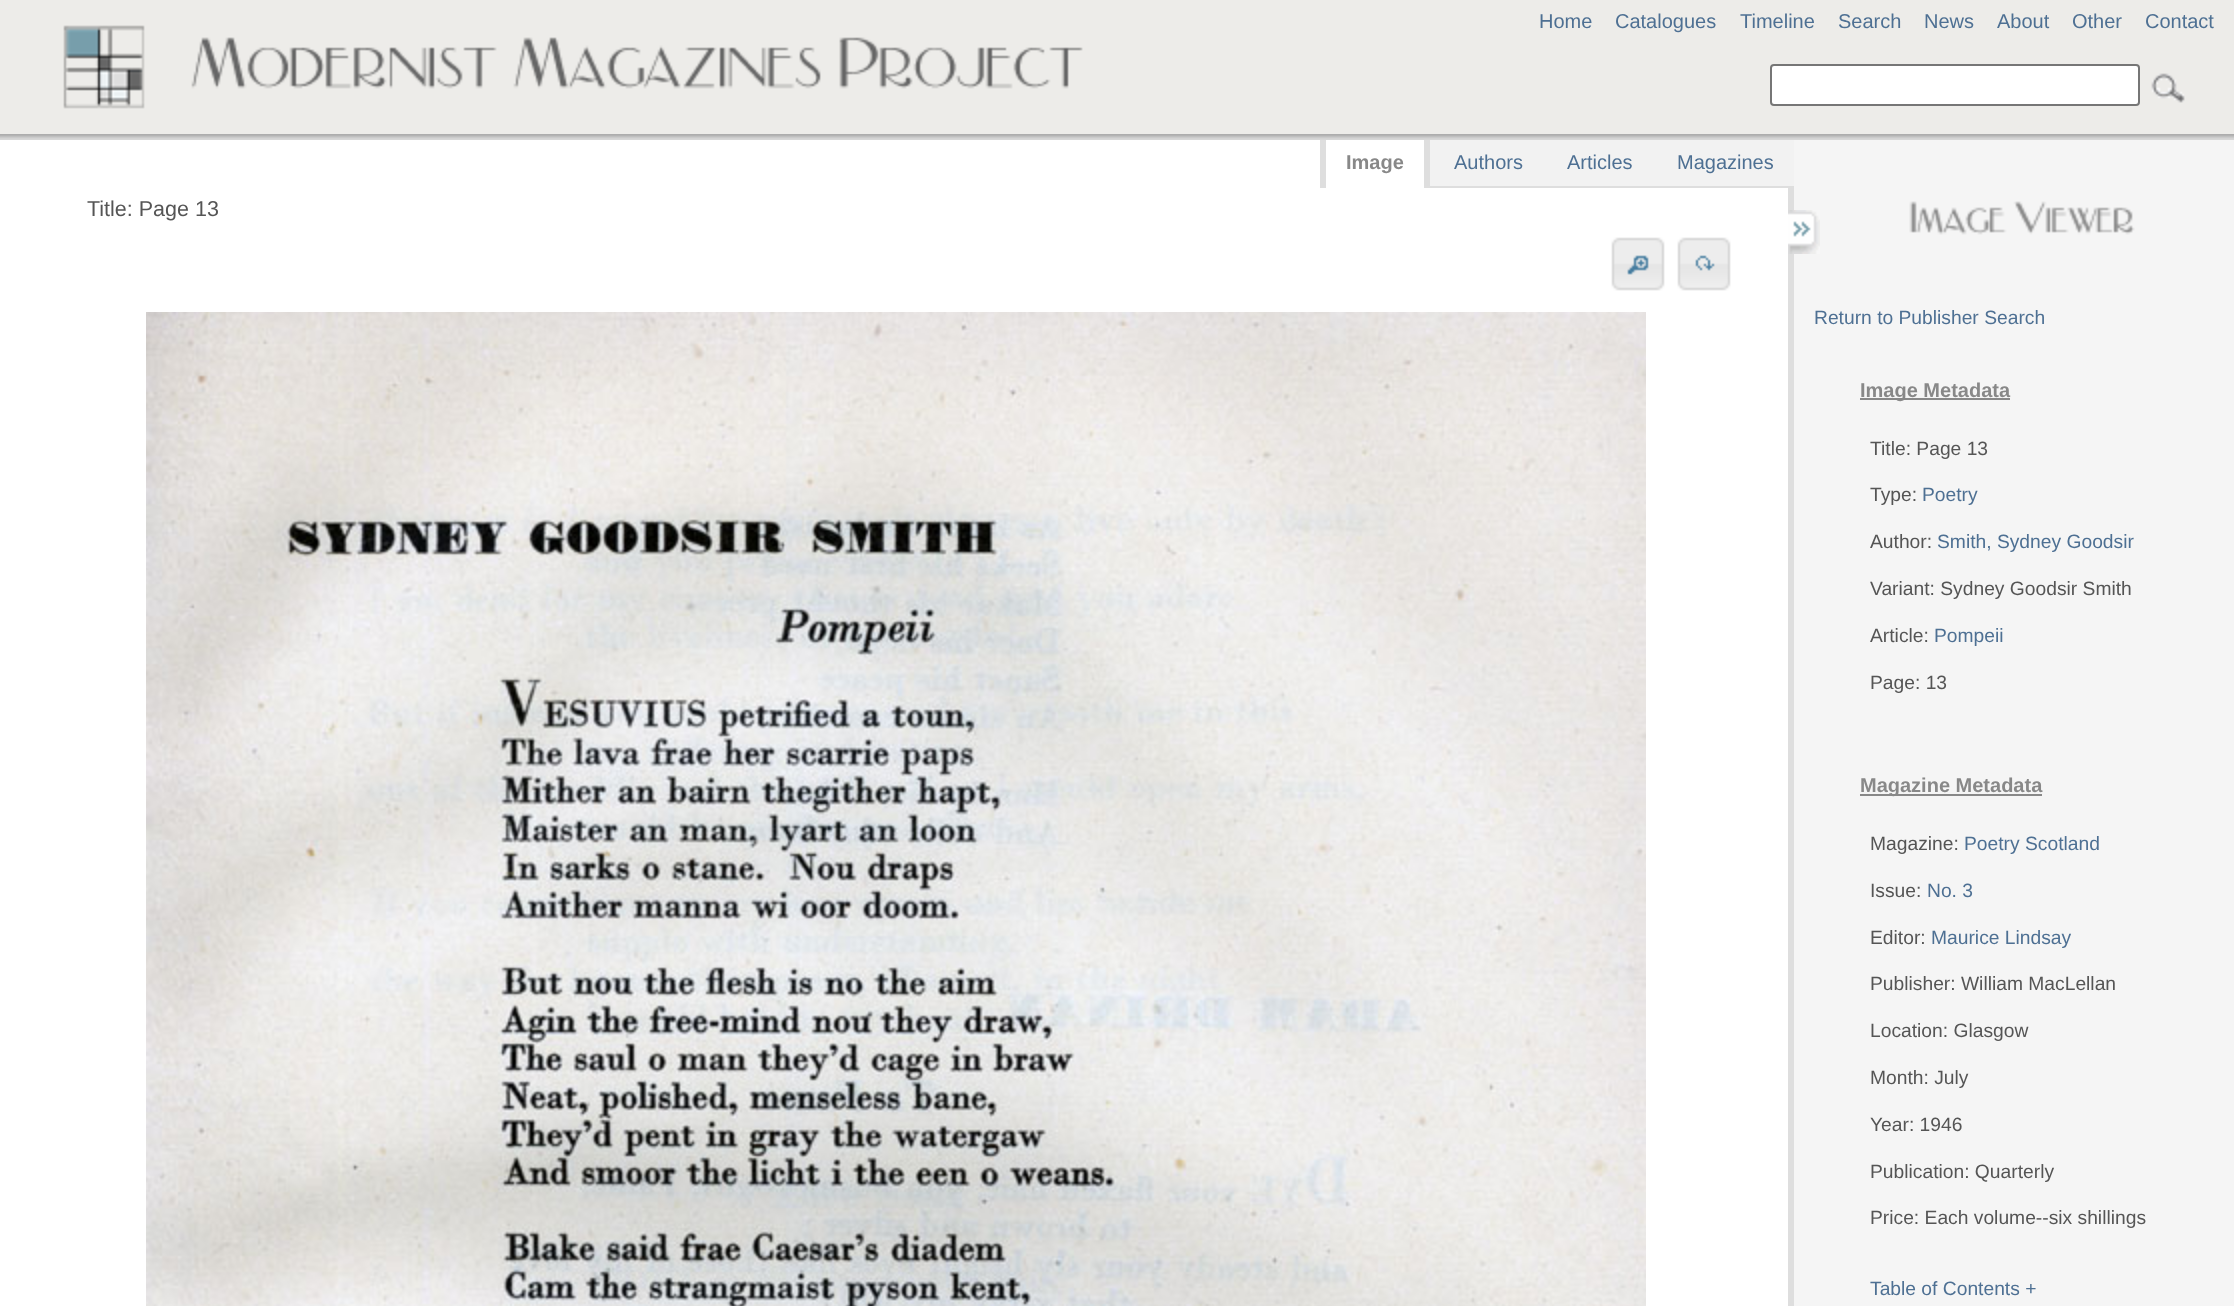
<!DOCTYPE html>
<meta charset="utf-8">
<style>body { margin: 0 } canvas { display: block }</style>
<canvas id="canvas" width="2234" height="1306"></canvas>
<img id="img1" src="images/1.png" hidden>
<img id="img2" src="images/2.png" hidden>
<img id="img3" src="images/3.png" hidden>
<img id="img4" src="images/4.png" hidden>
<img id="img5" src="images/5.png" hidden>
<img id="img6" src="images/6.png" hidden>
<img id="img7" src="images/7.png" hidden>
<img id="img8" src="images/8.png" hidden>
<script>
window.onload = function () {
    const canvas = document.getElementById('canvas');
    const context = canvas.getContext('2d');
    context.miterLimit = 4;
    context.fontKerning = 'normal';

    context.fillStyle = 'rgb(237, 236, 233)';
    context.fillRect(0, 0, 2234, 1306);
    context.drawImage(document.getElementById('img1'), 0, 134, 2234, 6);
    context.drawImage(document.getElementById('img2'), 63, 25, 1020, 84);
    context.fillStyle = 'rgb(255, 255, 255)';
    context.beginPath();
    context.roundRect(1771, 65, 368, 40, 3);
    context.fill();
    context.strokeStyle = 'rgb(118, 118, 118)';
    context.lineWidth = 2;
    context.stroke();
    context.drawImage(document.getElementById('img3'), 2151, 73, 34, 30);
    context.fillStyle = 'rgb(245, 245, 245)';
    context.fillRect(1794, 140, 440, 1166);
    context.fillStyle = 'rgb(255, 255, 255)';
    context.fillRect(0, 140, 1788, 1166);
    context.fillStyle = 'rgb(222, 222, 222)';
    context.fillRect(1788, 188, 6, 1118);
    context.fillStyle = 'rgb(242, 242, 242)';
    context.fillRect(1430, 140, 364, 46);
    context.fillStyle = 'rgb(222, 222, 222)';
    context.fillRect(1430, 186, 364, 2);
    context.fillRect(1424, 140, 6, 48);
    context.fillRect(1320, 140, 6, 48);
    context.drawImage(document.getElementById('img4'), 1611, 237, 54, 54);
    context.drawImage(document.getElementById('img5'), 1677, 237, 54, 54);
    context.drawImage(document.getElementById('img6'), 146, 312, 1500, 994);
    context.drawImage(document.getElementById('img7'), 1788, 210, 32, 44);
    context.drawImage(document.getElementById('img8'), 1909, 201, 226, 34);
    context.fillStyle = 'rgb(136, 136, 136)';
    context.fillRect(1860, 398, 150, 2);
    context.fillRect(1860, 794, 182, 2);
    context.font = '20px Liberation Sans';
    context.fillStyle = 'rgb(78, 112, 147)';
    context.fillText('Home', 1539, 28);
    context.fillText('Catalogues', 1615, 28);
    context.fillText('Timeline', 1740, 28);
    context.fillText('Search', 1838, 28);
    context.fillText('News', 1924, 28);
    context.fillText('About', 1997, 28);
    context.fillText('Other', 2072, 28);
    context.fillText('Contact', 2145, 28);
    context.font = 'bold 20px Liberation Sans';
    context.fillStyle = 'rgb(136, 136, 136)';
    context.fillText('Image', 1346, 169);
    context.font = '20px Liberation Sans';
    context.fillStyle = 'rgb(78, 112, 147)';
    context.fillText('Authors', 1454, 169);
    context.fillText('Articles', 1567, 169);
    context.fillText('Magazines', 1677, 169);
    context.font = '21.5px Liberation Sans';
    context.fillStyle = 'rgb(85, 85, 85)';
    context.fillText('Title: Page 13', 87, 216);
    context.font = '19.25px Liberation Sans';
    context.fillStyle = 'rgb(78, 112, 147)';
    context.fillText('Return to Publisher Search', 1814, 324);
    context.font = 'bold 20px Liberation Sans';
    context.fillStyle = 'rgb(136, 136, 136)';
    context.fillText('Image Metadata', 1860, 397);
    context.font = '19.25px Liberation Sans';
    context.fillStyle = 'rgb(85, 85, 85)';
    context.fillText('Title: Page 13', 1870, 455);
    context.fillText('Type:', 1870, 501);
    context.fillStyle = 'rgb(78, 112, 147)';
    context.fillText('Poetry', 1922, 501);
    context.fillStyle = 'rgb(85, 85, 85)';
    context.fillText('Author:', 1870, 548);
    context.fillStyle = 'rgb(78, 112, 147)';
    context.fillText('Smith, Sydney Goodsir', 1937, 548);
    context.fillStyle = 'rgb(85, 85, 85)';
    context.fillText('Variant: Sydney Goodsir Smith', 1870, 595);
    context.fillText('Article:', 1870, 642);
    context.fillStyle = 'rgb(78, 112, 147)';
    context.fillText('Pompeii', 1934, 642);
    context.fillStyle = 'rgb(85, 85, 85)';
    context.fillText('Page: 13', 1870, 689);
    context.font = 'bold 20px Liberation Sans';
    context.fillStyle = 'rgb(136, 136, 136)';
    context.fillText('Magazine Metadata', 1860, 792);
    context.font = '19.25px Liberation Sans';
    context.fillStyle = 'rgb(85, 85, 85)';
    context.fillText('Magazine:', 1870, 850);
    context.fillStyle = 'rgb(78, 112, 147)';
    context.fillText('Poetry Scotland', 1964, 850);
    context.fillStyle = 'rgb(85, 85, 85)';
    context.fillText('Issue:', 1870, 897);
    context.fillStyle = 'rgb(78, 112, 147)';
    context.fillText('No. 3', 1927, 897);
    context.fillStyle = 'rgb(85, 85, 85)';
    context.fillText('Editor:', 1870, 944);
    context.fillStyle = 'rgb(78, 112, 147)';
    context.fillText('Maurice Lindsay', 1931, 944);
    context.fillStyle = 'rgb(85, 85, 85)';
    context.fillText('Publisher: William MacLellan', 1870, 990);
    context.fillText('Location: Glasgow', 1870, 1037);
    context.fillText('Month: July', 1870, 1084);
    context.fillText('Year: 1946', 1870, 1131);
    context.fillText('Publication: Quarterly', 1870, 1178);
    context.fillText('Price: Each volume--six shillings', 1870, 1224);
    context.fillStyle = 'rgb(78, 112, 147)';
    context.fillText('Table of Contents +', 1870, 1295);
};
</script>
